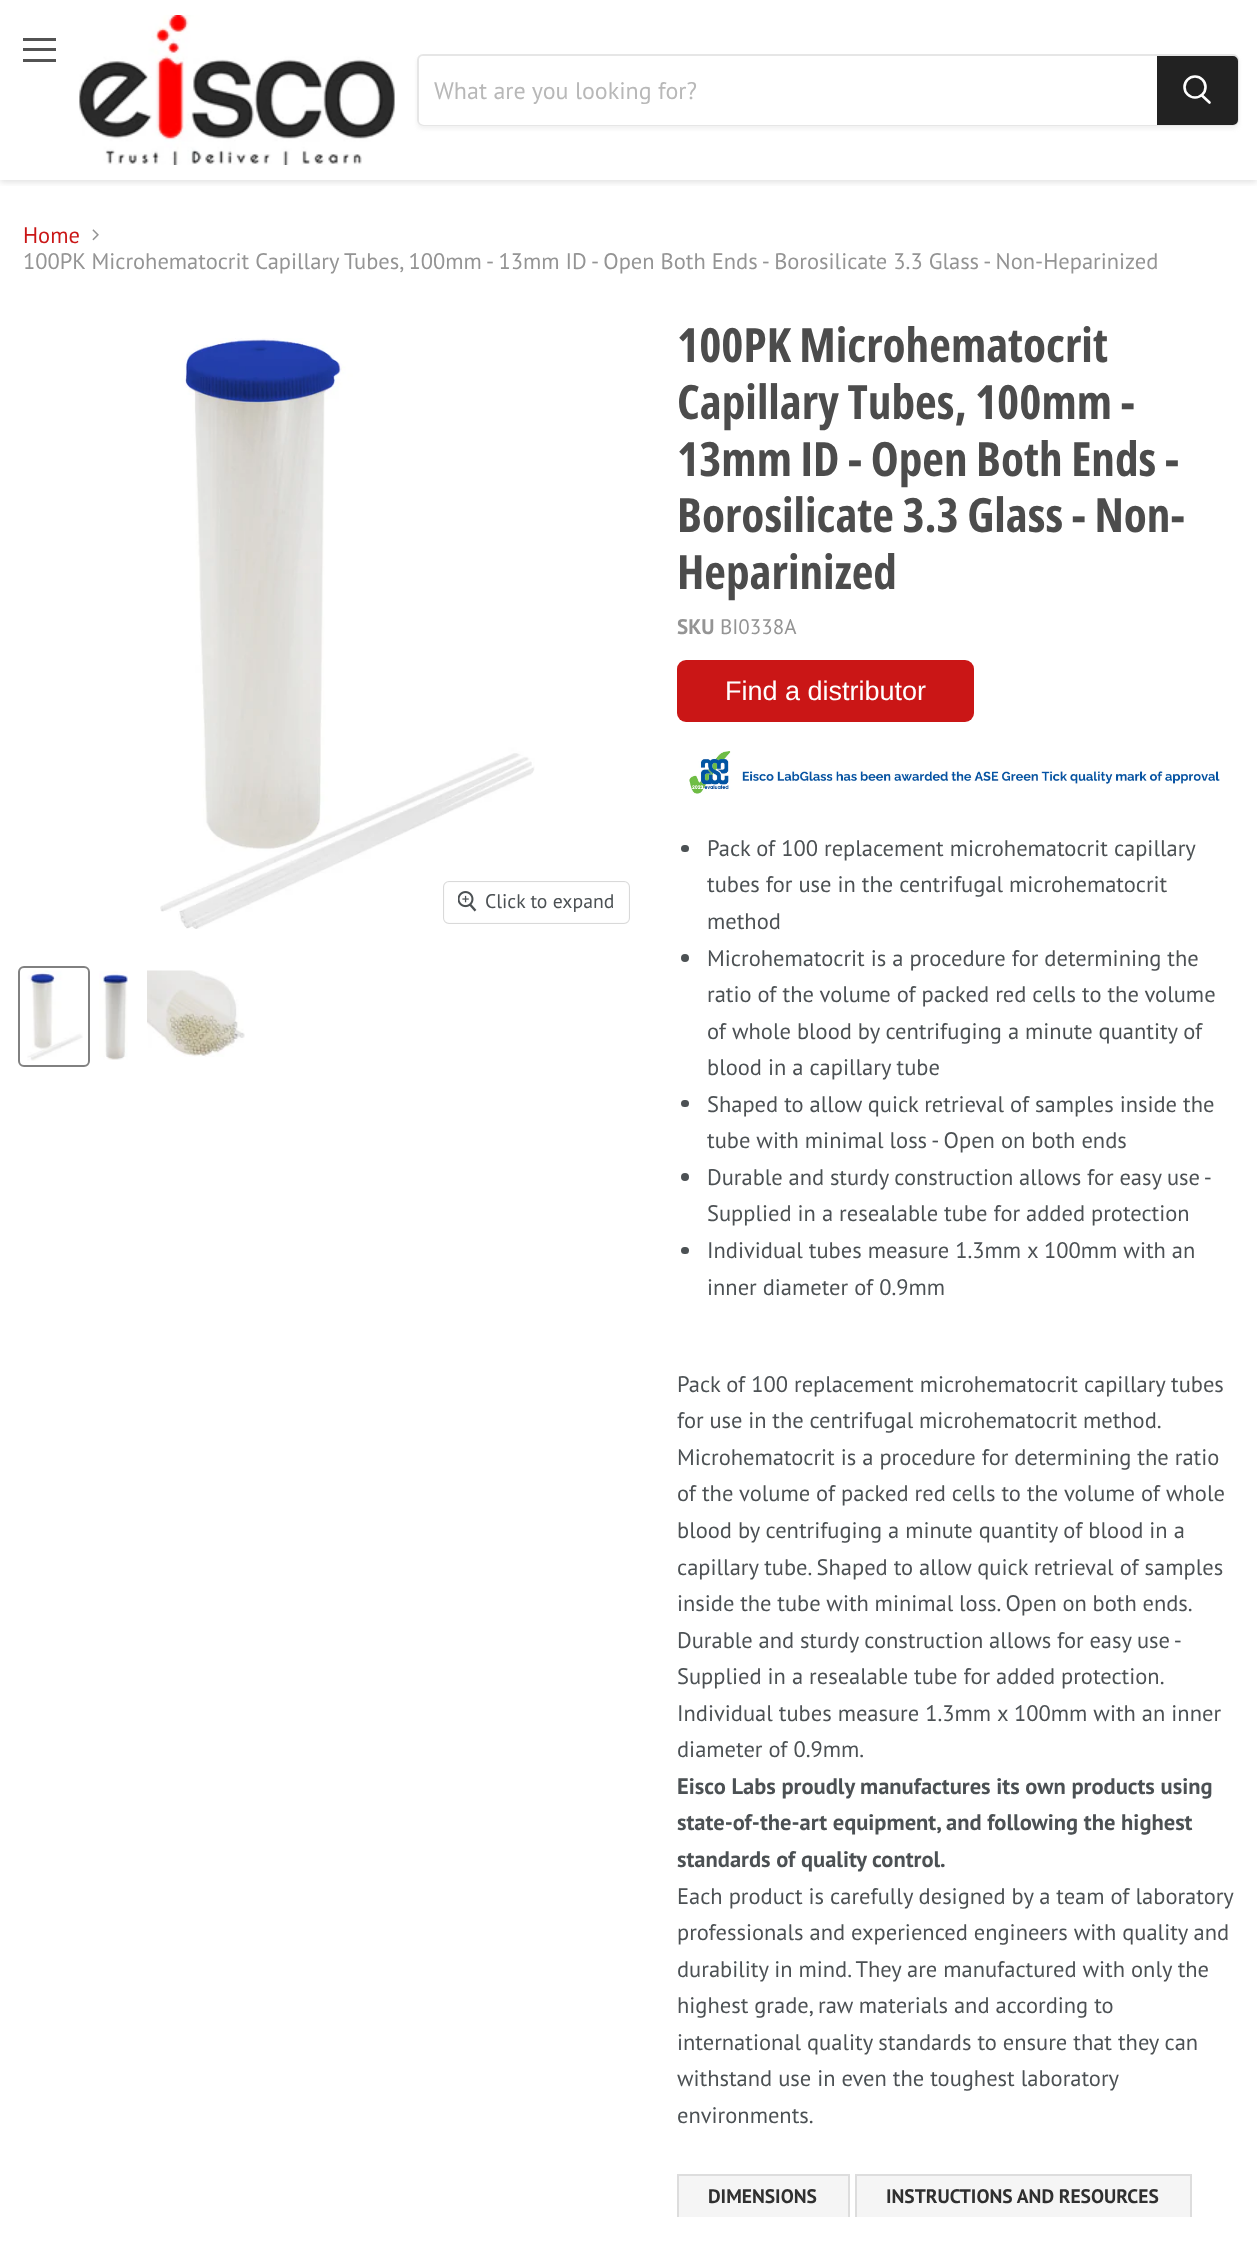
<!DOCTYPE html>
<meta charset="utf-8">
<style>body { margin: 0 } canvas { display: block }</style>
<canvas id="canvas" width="1257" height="2266"></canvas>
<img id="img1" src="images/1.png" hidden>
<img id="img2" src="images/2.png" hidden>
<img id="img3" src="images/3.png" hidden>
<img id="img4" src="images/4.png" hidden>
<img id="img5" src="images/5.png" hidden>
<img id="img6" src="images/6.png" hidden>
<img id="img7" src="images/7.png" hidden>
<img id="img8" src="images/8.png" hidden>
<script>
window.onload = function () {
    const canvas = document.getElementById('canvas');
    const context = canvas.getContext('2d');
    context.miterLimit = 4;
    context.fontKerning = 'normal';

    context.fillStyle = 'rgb(255, 255, 255)';
    context.fillRect(0, 0, 1257, 2266);
    context.save();
    context.beginPath();
    context.rect(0, 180, 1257, 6);
    context.clip();
    context.fillStyle = 'rgba(128, 128, 128, 0.25)';
    context.filter = 'blur(3px)';
    context.beginPath();
    context.rect(0, 2, 1257, 180);
    context.fill();
    context.filter = 'none';
    context.restore();
    context.fillStyle = 'rgb(83, 83, 83)';
    context.fillRect(23, 38, 33, 3);
    context.fillRect(23, 48, 33, 3);
    context.fillRect(23, 59, 33, 3);
    context.drawImage(document.getElementById('img1'), 79, 15, 316, 150);
    context.save();
    context.beginPath();
    context.moveTo(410, 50);
    context.lineTo(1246, 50);
    context.lineTo(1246, 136);
    context.lineTo(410, 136);
    context.closePath();
    context.moveTo(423, 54);
    context.lineTo(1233, 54);
    context.bezierCurveTo(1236.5, 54, 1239, 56.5, 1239, 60);
    context.lineTo(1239, 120);
    context.bezierCurveTo(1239, 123.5, 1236.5, 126, 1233, 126);
    context.lineTo(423, 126);
    context.bezierCurveTo(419.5, 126, 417, 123.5, 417, 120);
    context.lineTo(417, 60);
    context.bezierCurveTo(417, 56.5, 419.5, 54, 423, 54);
    context.closePath();
    context.clip('evenodd');
    context.fillStyle = 'rgba(128, 128, 128, 0.11)';
    context.filter = 'blur(2px)';
    context.beginPath();
    context.roundRect(417, 57, 822, 72, 6);
    context.fill();
    context.filter = 'none';
    context.restore();
    context.beginPath();
    context.roundRect(418, 55, 820, 70, 5);
    context.strokeStyle = 'rgba(128, 128, 128, 0.2)';
    context.lineWidth = 2;
    context.stroke();
    context.fillStyle = 'rgb(255, 255, 255)';
    context.beginPath();
    context.roundRect(419, 56, 738, 69, [5, 0, 0, 5]);
    context.fill();
    context.fillStyle = 'rgb(34, 34, 34)';
    context.beginPath();
    context.roundRect(1158, 57, 79, 67, [0, 4, 4, 0]);
    context.fill();
    context.strokeStyle = 'rgb(34, 34, 34)';
    context.stroke();
    context.beginPath();
    context.moveTo(1209.5, 102.5);
    context.lineTo(1202, 95.5);
    context.strokeStyle = 'rgb(255, 255, 255)';
    context.lineWidth = 2.6;
    context.lineCap = 'round';
    context.stroke();
    context.beginPath();
    context.arc(1195, 87, 10.5, 0, 2 * Math.PI);
    context.stroke();
    context.drawImage(document.getElementById('img2'), 92, 229, 7, 12);
    context.drawImage(document.getElementById('img3'), 160, 338, 375, 591);
    context.beginPath();
    context.roundRect(444, 882, 185, 41, 5);
    context.strokeStyle = 'rgb(217, 217, 217)';
    context.lineWidth = 2;
    context.stroke();
    context.fillStyle = 'rgba(255, 255, 255, 0.9)';
    context.beginPath();
    context.roundRect(444, 882, 185, 41, 5);
    context.fill();
    context.drawImage(document.getElementById('img4'), 458, 891, 19, 21);
    context.beginPath();
    context.roundRect(19, 967, 70, 99, 5);
    context.strokeStyle = 'rgb(129, 129, 129)';
    context.stroke();
    context.drawImage(document.getElementById('img5'), 27, 970, 56, 91);
    context.drawImage(document.getElementById('img6'), 99, 971, 29, 89);
    context.drawImage(document.getElementById('img7'), 147, 970, 98, 87);
    context.fillStyle = 'rgb(202, 22, 22)';
    context.beginPath();
    context.roundRect(677, 660, 297, 62, 9);
    context.fill();
    context.drawImage(document.getElementById('img8'), 689, 751, 531, 43);
    context.fillStyle = 'rgb(76, 81, 84)';
    context.beginPath();
    context.roundRect(681, 845, 8, 7, 3.5);
    context.fill();
    context.beginPath();
    context.arc(685, 958, 4, 0, 2 * Math.PI);
    context.fill();
    context.beginPath();
    context.roundRect(681, 1100, 8, 7, 3.5);
    context.fill();
    context.beginPath();
    context.arc(685, 1177, 4, 0, 2 * Math.PI);
    context.fill();
    context.beginPath();
    context.roundRect(681, 1247, 8, 7, 3.5);
    context.fill();
    context.fillStyle = 'rgb(245, 245, 245)';
    context.fillRect(679, 2176, 169, 41);
    context.fillStyle = 'rgb(221, 221, 221)';
    context.fillRect(677, 2174, 172, 2);
    context.fillRect(848, 2174, 2, 43);
    context.fillRect(677, 2174, 2, 43);
    context.fillStyle = 'rgb(245, 245, 245)';
    context.fillRect(857, 2176, 333, 41);
    context.fillStyle = 'rgb(221, 221, 221)';
    context.fillRect(855, 2174, 336, 2);
    context.fillRect(1190, 2174, 2, 43);
    context.fillRect(855, 2174, 2, 43);
    context.font = '24px PT Sans';
    context.fillStyle = 'rgb(184, 184, 184)';
    context.fillText('What are you looking for?', 434, 99);
    context.font = '22.5px PT Sans';
    context.fillStyle = 'rgb(202, 22, 22)';
    context.fillText('Home', 23, 243);
    context.fillStyle = 'rgb(148, 148, 148)';
    context.fillText('100PK Microhematocrit Capillary Tubes, 100mm - 13mm ID - Open Both Ends - Borosilicate 3.3 Glass - Non-Heparinized', 23, 269);
    context.font = '19.75px PT Sans';
    context.fillStyle = 'rgb(76, 81, 84)';
    context.fillText('Click to expand', 485, 908);
    context.font = 'bold 47.25px Open Sans Condensed';
    context.fillStyle = 'rgb(76, 76, 76)';
    context.fillText('100PK Microhematocrit', 677, 362);
    context.fillText('Capillary Tubes, 100mm -', 677, 419);
    context.fillText('13mm ID - Open Both Ends -', 677, 476);
    context.fillText('Borosilicate 3.3 Glass - Non-', 677, 532);
    context.fillText('Heparinized', 677, 589);
    context.font = 'bold 21px PT Sans';
    context.fillStyle = 'rgb(148, 148, 148)';
    context.fillText('SKU', 677, 634);
    context.font = '21px PT Sans';
    context.fillText('BI0338A', 720, 634);
    context.font = '27px Liberation Sans';
    context.fillStyle = 'rgb(255, 255, 255)';
    context.fillText('Find a distributor', 725, 700);
    context.font = '22.5px PT Sans';
    context.fillStyle = 'rgb(76, 81, 84)';
    context.fillText('Pack of 100 replacement microhematocrit capillary', 707, 856);
    context.fillText('tubes for use in the centrifugal microhematocrit', 707, 892);
    context.fillText('method', 707, 929);
    context.fillText('Microhematocrit is a procedure for determining the', 707, 966);
    context.fillText('ratio of the volume of packed red cells to the volume', 707, 1002);
    context.fillText('of whole blood by centrifuging a minute quantity of', 707, 1039);
    context.fillText('blood in a capillary tube', 707, 1075);
    context.fillText('Shaped to allow quick retrieval of samples inside the', 707, 1112);
    context.fillText('tube with minimal loss - Open on both ends', 707, 1148);
    context.wordSpacing = '-0.25px';
    context.fillText('Durable and sturdy construction allows for easy use -', 707, 1185);
    context.wordSpacing = '0px';
    context.fillText('Supplied in a resealable tube for added protection', 707, 1221);
    context.fillText('Individual tubes measure 1.3mm x 100mm with an', 707, 1258);
    context.fillText('inner diameter of 0.9mm', 707, 1295);
    context.fillText('Pack of 100 replacement microhematocrit capillary tubes', 677, 1392);
    context.wordSpacing = '-0.25px';
    context.fillText('for use in the centrifugal microhematocrit method.', 677, 1428);
    context.wordSpacing = '0px';
    context.fillText('Microhematocrit is a procedure for determining the ratio', 677, 1465);
    context.fillText('of the volume of packed red cells to the volume of whole', 677, 1501);
    context.fillText('blood by centrifuging a minute quantity of blood in a', 677, 1538);
    context.fillText('capillary tube. Shaped to allow quick retrieval of samples', 677, 1575);
    context.wordSpacing = '-0.25px';
    context.fillText('inside the tube with minimal loss. Open on both ends.', 677, 1611);
    context.fillText('Durable and sturdy construction allows for easy use -', 677, 1648);
    context.wordSpacing = '0px';
    context.fillText('Supplied in a resealable tube for added protection.', 677, 1684);
    context.fillText('Individual tubes measure 1.3mm x 100mm with an inner', 677, 1721);
    context.fillText('diameter of 0.9mm.', 677, 1757);
    context.font = 'bold 22.5px PT Sans';
    context.fillText('Eisco Labs proudly manufactures its own products using', 677, 1794);
    context.fillText('state-of-the-art equipment, and following the highest', 677, 1830);
    context.fillText('standards of quality control.', 677, 1867);
    context.font = '22.5px PT Sans';
    context.fillText('Each product is carefully designed by a team of laboratory', 677, 1904);
    context.fillText('professionals and experienced engineers with quality and', 677, 1940);
    context.fillText('durability in mind. They are manufactured with only the', 677, 1977);
    context.fillText('highest grade, raw materials and according to', 677, 2013);
    context.fillText('international quality standards to ensure that they can', 677, 2050);
    context.fillText('withstand use in even the toughest laboratory', 677, 2086);
    context.fillText('environments.', 677, 2123);
    context.font = 'bold 19.5px PT Sans';
    context.fillStyle = 'rgb(48, 48, 48)';
    context.fillText('DIMENSIONS', 708, 2203);
    context.fillText('INSTRUCTIONS AND RESOURCES', 886, 2203);
};
</script>
